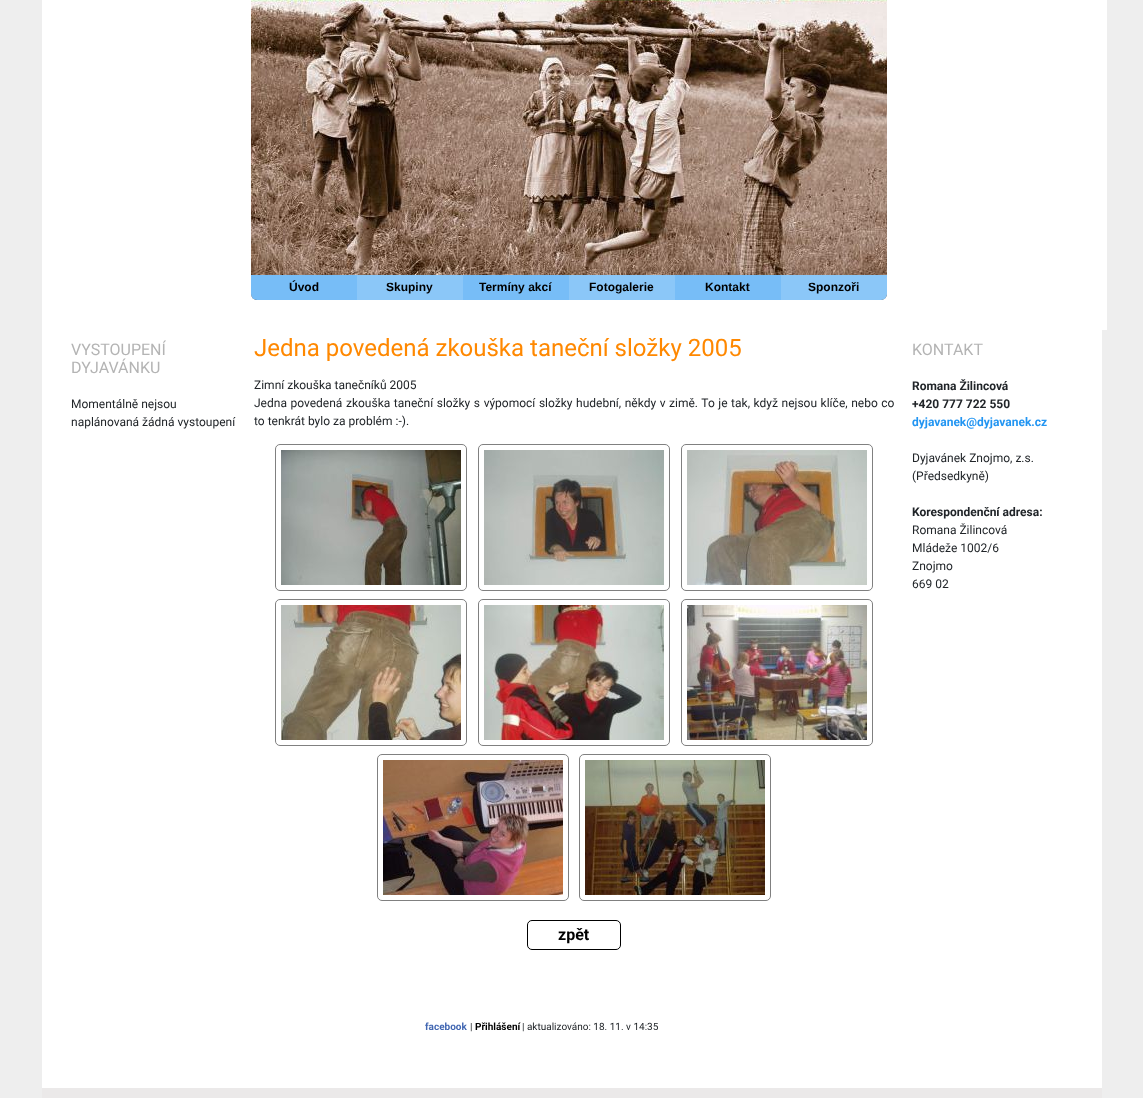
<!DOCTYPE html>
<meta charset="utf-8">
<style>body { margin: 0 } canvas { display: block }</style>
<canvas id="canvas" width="1143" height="1098"></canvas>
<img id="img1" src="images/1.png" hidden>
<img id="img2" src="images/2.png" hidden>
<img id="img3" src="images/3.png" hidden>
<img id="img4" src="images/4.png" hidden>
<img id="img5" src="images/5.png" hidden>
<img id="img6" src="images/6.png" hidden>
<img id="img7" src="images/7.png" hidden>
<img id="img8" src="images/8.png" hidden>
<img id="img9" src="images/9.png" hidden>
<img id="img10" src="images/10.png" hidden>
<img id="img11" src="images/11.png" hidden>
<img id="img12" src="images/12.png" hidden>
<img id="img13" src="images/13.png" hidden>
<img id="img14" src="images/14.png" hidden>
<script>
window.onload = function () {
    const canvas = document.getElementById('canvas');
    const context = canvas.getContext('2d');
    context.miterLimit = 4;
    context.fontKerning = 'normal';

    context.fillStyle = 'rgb(238, 238, 238)';
    context.fillRect(0, 0, 1143, 1098);
    context.fillStyle = 'rgb(255, 255, 255)';
    context.fillRect(42, 330, 1060, 758);
    context.fillStyle = 'rgb(235, 233, 233)';
    context.fillRect(42, 1088, 1060, 10);
    context.fillStyle = 'rgb(255, 255, 255)';
    context.fillRect(42, 0, 1065, 330);
    context.drawImage(document.getElementById('img1'), 251, 0, 106, 300);
    context.fillStyle = 'rgb(119, 189, 247)';
    context.beginPath();
    context.roundRect(251, 275, 106, 25, [0, 0, 0, 6]);
    context.fill();
    context.drawImage(document.getElementById('img2'), 357, 0, 106, 275);
    context.fillStyle = 'rgb(139, 199, 248)';
    context.fillRect(357, 275, 106, 25);
    context.drawImage(document.getElementById('img3'), 463, 0, 106, 275);
    context.fillStyle = 'rgb(119, 189, 247)';
    context.fillRect(463, 275, 106, 25);
    context.drawImage(document.getElementById('img4'), 569, 0, 106, 275);
    context.fillStyle = 'rgb(139, 199, 248)';
    context.fillRect(569, 275, 106, 25);
    context.drawImage(document.getElementById('img5'), 675, 0, 106, 275);
    context.fillStyle = 'rgb(119, 189, 247)';
    context.fillRect(675, 275, 106, 25);
    context.drawImage(document.getElementById('img6'), 781, 0, 106, 300);
    context.fillStyle = 'rgb(139, 199, 248)';
    context.beginPath();
    context.roundRect(781, 275, 106, 25, [0, 0, 6, 0]);
    context.fill();
    context.beginPath();
    context.roundRect(275.5, 444.5, 191, 146, 4.5);
    context.strokeStyle = 'rgb(128, 128, 128)';
    context.stroke();
    context.drawImage(document.getElementById('img7'), 281, 450, 180, 135);
    context.beginPath();
    context.roundRect(478.5, 444.5, 191, 146, 4.5);
    context.stroke();
    context.drawImage(document.getElementById('img8'), 484, 450, 180, 135);
    context.beginPath();
    context.roundRect(681.5, 444.5, 191, 146, 4.5);
    context.stroke();
    context.drawImage(document.getElementById('img9'), 687, 450, 180, 135);
    context.beginPath();
    context.roundRect(275.5, 599.5, 191, 146, 4.5);
    context.stroke();
    context.drawImage(document.getElementById('img10'), 281, 605, 180, 135);
    context.beginPath();
    context.roundRect(478.5, 599.5, 191, 146, 4.5);
    context.stroke();
    context.drawImage(document.getElementById('img11'), 484, 605, 180, 135);
    context.beginPath();
    context.roundRect(681.5, 599.5, 191, 146, 4.5);
    context.stroke();
    context.drawImage(document.getElementById('img12'), 687, 605, 180, 135);
    context.beginPath();
    context.roundRect(377.5, 754.5, 191, 146, 4.5);
    context.stroke();
    context.drawImage(document.getElementById('img13'), 383, 760, 180, 135);
    context.beginPath();
    context.roundRect(579.5, 754.5, 191, 146, 4.5);
    context.stroke();
    context.drawImage(document.getElementById('img14'), 585, 760, 180, 135);
    context.beginPath();
    context.roundRect(527.5, 920.5, 93, 29, 4.5);
    context.strokeStyle = 'rgb(0, 0, 0)';
    context.stroke();
    context.font = 'bold 12px Liberation Sans';
    context.fillStyle = 'rgb(0, 0, 0)';
    context.fillText('Úvod', 289, 291);
    context.fillText('Skupiny', 386, 291);
    context.fillText('Termíny akcí', 479, 291);
    context.fillText('Fotogalerie', 589, 291);
    context.fillText('Kontakt', 705, 291);
    context.fillText('Sponzoři', 808, 291);
    context.font = '16px Roboto';
    context.fillStyle = 'rgb(180, 180, 180)';
    context.fillText('VYSTOUPENÍ', 71, 355);
    context.fillText('DYJAVÁNKU', 71, 373);
    context.font = '12px Roboto';
    context.fillStyle = 'rgb(33, 37, 41)';
    context.fillText('Momentálně nejsou', 71, 408);
    context.fillText('naplánovaná žádná vystoupení', 71, 426);
    context.font = '24px Roboto';
    context.fillStyle = 'rgb(255, 136, 0)';
    context.fillText('Jedna povedená zkouška taneční složky 2005', 254, 356);
    context.font = '12px Roboto';
    context.fillStyle = 'rgb(33, 37, 41)';
    context.fillText('Zimní zkouška tanečníků 2005', 254, 389);
    context.wordSpacing = '0.6px';
    context.fillText('Jedna povedená zkouška taneční složky s výpomocí složky hudební, někdy v zimě. To je tak, když nejsou klíče, nebo co', 254, 407);
    context.wordSpacing = '0px';
    context.fillText('to tenkrát bylo za problém :-).', 254, 425);
    context.font = 'bold 16px Roboto';
    context.fillStyle = 'rgb(0, 0, 0)';
    context.fillText('zpět', 558, 940);
    context.font = '16px Roboto';
    context.fillStyle = 'rgb(180, 180, 180)';
    context.fillText('KONTAKT', 912, 355);
    context.font = 'bold 12px Roboto';
    context.fillStyle = 'rgb(33, 37, 41)';
    context.fillText('Romana Žilincová', 912, 390);
    context.fillText('+420 777 722 550', 912, 408);
    context.fillStyle = 'rgb(34, 149, 242)';
    context.fillText('dyjavanek@dyjavanek.cz', 912, 426);
    context.font = '12px Roboto';
    context.fillStyle = 'rgb(33, 37, 41)';
    context.fillText('Dyjavánek Znojmo, z.s.', 912, 462);
    context.fillText('(Předsedkyně)', 912, 480);
    context.font = 'bold 12px Roboto';
    context.fillText('Korespondenční adresa:', 912, 516);
    context.font = '12px Roboto';
    context.fillText('Romana Žilincová', 912, 534);
    context.fillText('Mládeže 1002/6', 912, 552);
    context.fillText('Znojmo', 912, 570);
    context.fillText('669 02', 912, 588);
    context.font = 'bold 10px Roboto';
    context.fillStyle = 'rgb(66, 103, 178)';
    context.fillText('facebook', 425, 1030);
    context.font = '10px Roboto';
    context.fillStyle = 'rgb(33, 37, 41)';
    context.fillText('|', 470, 1030);
    context.font = 'bold 10px Roboto';
    context.fillStyle = 'rgb(0, 0, 0)';
    context.fillText('Přihlášení', 475, 1030);
    context.font = '10px Roboto';
    context.fillStyle = 'rgb(33, 37, 41)';
    context.fillText('| aktualizováno: 18. 11. v 14:35', 522, 1030);
};
</script>
